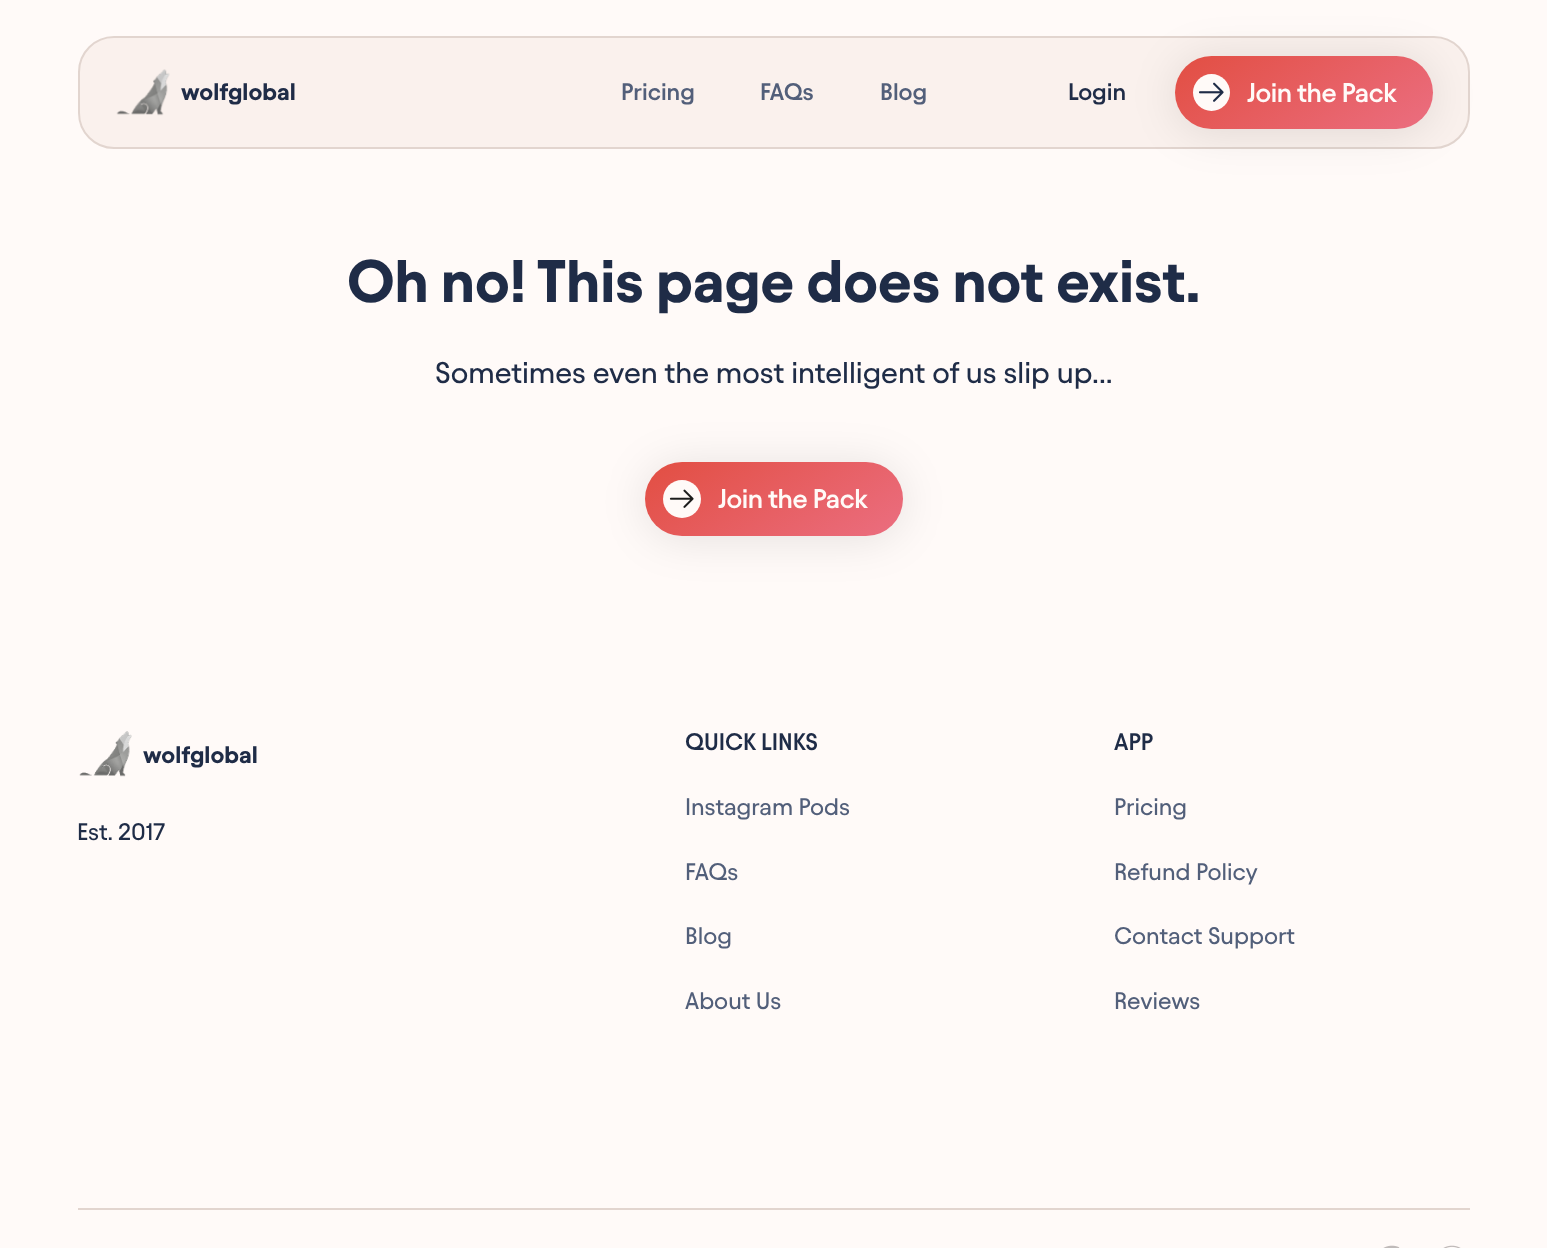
<!DOCTYPE html>
<meta charset="utf-8">
<style>body { margin: 0 } canvas { display: block }</style>
<canvas id="canvas" width="1547" height="1248"></canvas>
<img id="img1" src="images/1.png" hidden>
<img id="img2" src="images/2.png" hidden>
<img id="img3" src="images/3.png" hidden>
<img id="img4" src="images/4.png" hidden>
<img id="img5" src="images/5.png" hidden>
<img id="img6" src="images/6.png" hidden>
<script>
window.onload = function () {
    const canvas = document.getElementById('canvas');
    const context = canvas.getContext('2d');
    context.miterLimit = 4;
    context.fontKerning = 'normal';
    let gradient;

    context.fillStyle = 'rgb(255, 250, 248)';
    context.fillRect(0, 0, 1547, 1248);
    context.fillStyle = 'rgb(250, 241, 237)';
    context.beginPath();
    context.roundRect(79, 37, 1390, 111, 35);
    context.fill();
    context.strokeStyle = 'rgb(226, 213, 207)';
    context.lineWidth = 2;
    context.stroke();
    context.drawImage(document.getElementById('img1'), 116, 69, 54, 47);
    context.fillStyle = 'rgba(0, 0, 0, 0.1)';
    context.filter = 'blur(22.5px)';
    context.beginPath();
    context.roundRect(1175, 59, 258, 73, 36.5);
    context.fill();
    context.filter = 'none';
    gradient = context.createLinearGradient(1246, 7.2, 1361, 177);
    gradient.addColorStop(0, 'rgb(226, 78, 66)');
    gradient.addColorStop(1, 'rgb(235, 110, 128)');
    context.fillStyle = gradient;
    context.beginPath();
    context.roundRect(1175, 56, 258, 73, 36.5);
    context.fill();
    context.fillStyle = 'rgb(255, 250, 248)';
    context.beginPath();
    context.arc(1211.5, 92.5, 18.5, 0, 2 * Math.PI);
    context.fill();
    context.drawImage(document.getElementById('img2'), 1199, 82, 25, 20);
    context.fillStyle = 'rgba(0, 0, 0, 0.1)';
    context.filter = 'blur(22.5px)';
    context.beginPath();
    context.roundRect(645, 465, 258, 74, 37);
    context.fill();
    context.filter = 'none';
    gradient = context.createLinearGradient(717, 414, 831, 584);
    gradient.addColorStop(0, 'rgb(226, 78, 66)');
    gradient.addColorStop(1, 'rgb(235, 110, 128)');
    context.fillStyle = gradient;
    context.beginPath();
    context.roundRect(645, 462, 258, 74, 37);
    context.fill();
    context.fillStyle = 'rgb(255, 250, 248)';
    context.beginPath();
    context.arc(682, 499, 19, 0, 2 * Math.PI);
    context.fill();
    context.drawImage(document.getElementById('img3'), 669, 489, 25, 19);
    context.drawImage(document.getElementById('img4'), 79, 731, 53, 46);
    context.fillStyle = 'rgb(226, 213, 207)';
    context.fillRect(78, 1208, 1392, 2);
    context.drawImage(document.getElementById('img5'), 1383, 1245, 17, 3);
    context.drawImage(document.getElementById('img6'), 1443, 1245, 18, 3);
    context.font = 'bold 24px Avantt';
    context.fillStyle = 'rgb(31, 44, 71)';
    context.fillText('wolfglobal', 181, 100);
    context.font = '600 24px Avantt';
    context.fillStyle = 'rgb(82, 95, 122)';
    context.fillText('Pricing', 621, 100);
    context.fillText('FAQs', 760, 100);
    context.fillText('Blog', 880, 100);
    context.fillStyle = 'rgb(31, 44, 71)';
    context.fillText('Login', 1068, 100);
    context.letterSpacing = '-0.4px';
    context.font = '600 27px Avantt';
    context.fillStyle = 'rgb(255, 250, 248)';
    context.fillText('Join the Pack', 1247, 102);
    context.letterSpacing = '0px';
    context.font = 'bold 60px Avantt';
    context.fillStyle = 'rgb(31, 44, 71)';
    context.fillText('Oh no! This page does not exist.', 347, 302);
    context.font = '500 30px Avantt';
    context.fillText('Sometimes even the most intelligent of us slip up...', 435, 383);
    context.letterSpacing = '-0.4px';
    context.font = '600 27px Avantt';
    context.fillStyle = 'rgb(255, 250, 248)';
    context.fillText('Join the Pack', 718, 508);
    context.letterSpacing = '0px';
    context.font = 'bold 24px Avantt';
    context.fillStyle = 'rgb(31, 44, 71)';
    context.fillText('wolfglobal', 143, 763);
    context.font = '500 24px Avantt';
    context.fillText('Est. 2017', 77, 840);
    context.font = '600 24px Avantt';
    context.fillText('QUICK LINKS', 685, 750);
    context.font = '500 24px Avantt';
    context.fillStyle = 'rgb(82, 95, 122)';
    context.fillText('Instagram Pods', 685, 815);
    context.fillText('FAQs', 685, 880);
    context.fillText('Blog', 685, 944);
    context.fillText('About Us', 685, 1009);
    context.font = '600 24px Avantt';
    context.fillStyle = 'rgb(31, 44, 71)';
    context.fillText('APP', 1114, 750);
    context.font = '500 24px Avantt';
    context.fillStyle = 'rgb(82, 95, 122)';
    context.fillText('Pricing', 1114, 815);
    context.fillText('Refund Policy', 1114, 880);
    context.fillText('Contact Support', 1114, 944);
    context.fillText('Reviews', 1114, 1009);
};
</script>
